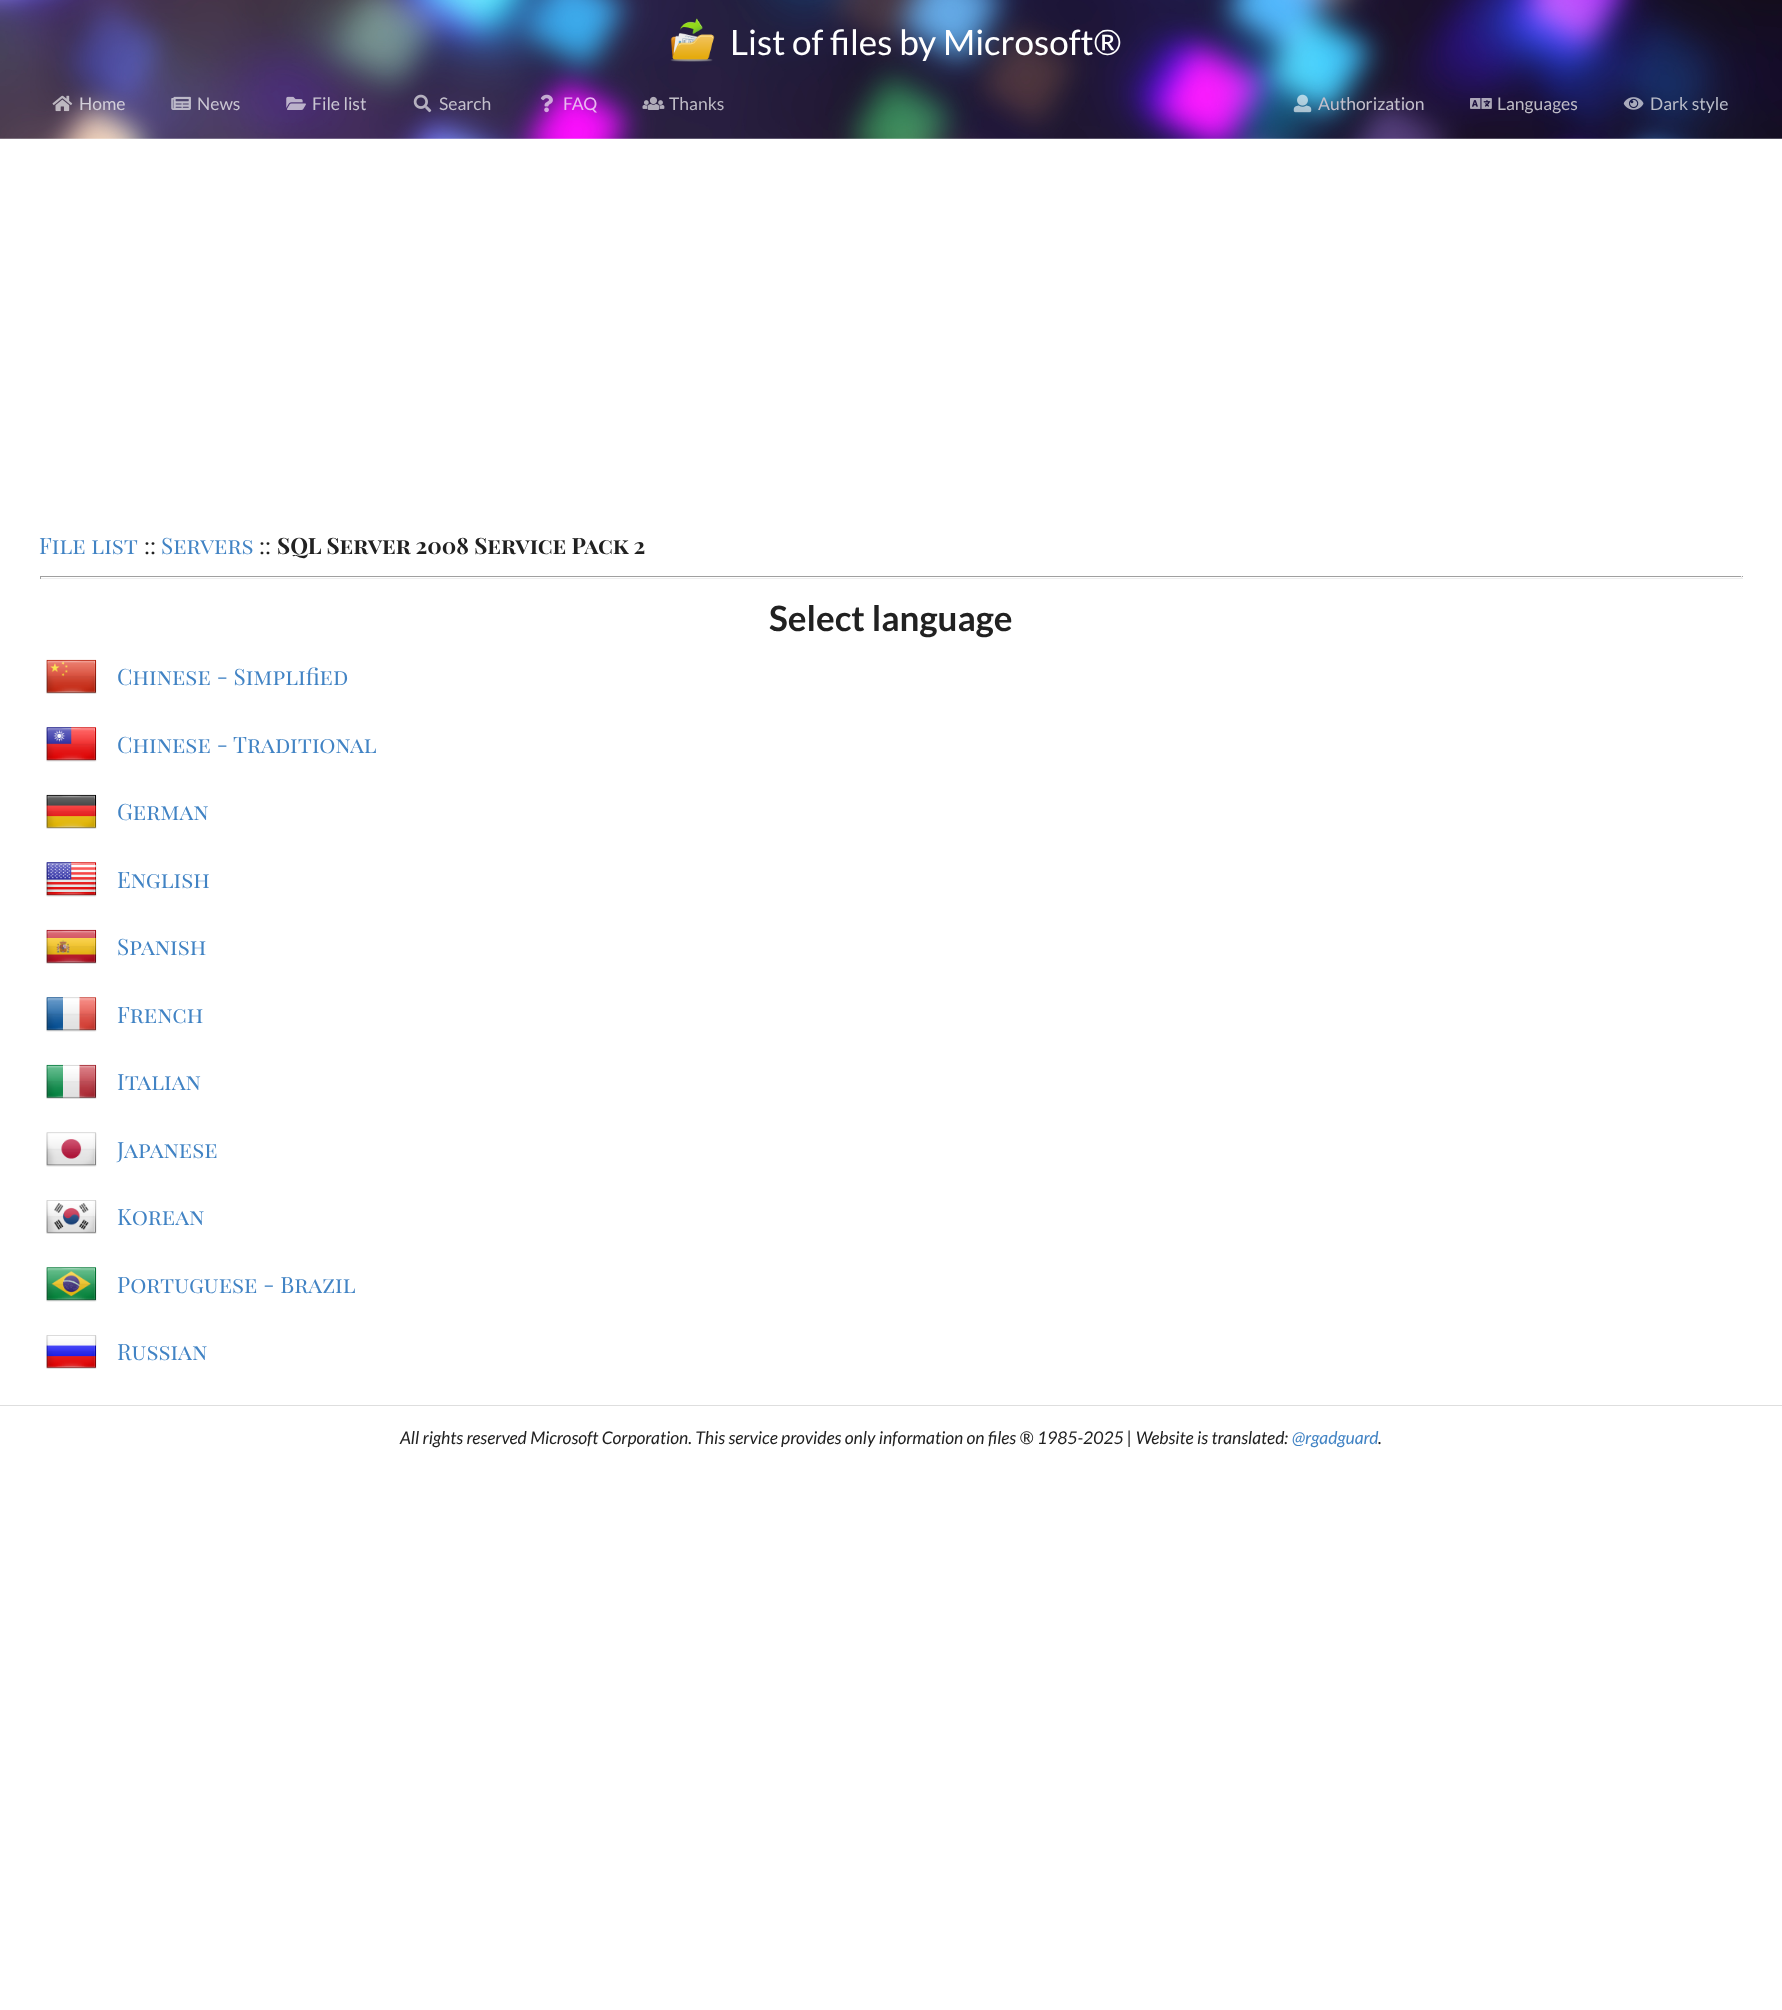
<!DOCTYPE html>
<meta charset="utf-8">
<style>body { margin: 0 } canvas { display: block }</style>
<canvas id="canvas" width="1782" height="2010"></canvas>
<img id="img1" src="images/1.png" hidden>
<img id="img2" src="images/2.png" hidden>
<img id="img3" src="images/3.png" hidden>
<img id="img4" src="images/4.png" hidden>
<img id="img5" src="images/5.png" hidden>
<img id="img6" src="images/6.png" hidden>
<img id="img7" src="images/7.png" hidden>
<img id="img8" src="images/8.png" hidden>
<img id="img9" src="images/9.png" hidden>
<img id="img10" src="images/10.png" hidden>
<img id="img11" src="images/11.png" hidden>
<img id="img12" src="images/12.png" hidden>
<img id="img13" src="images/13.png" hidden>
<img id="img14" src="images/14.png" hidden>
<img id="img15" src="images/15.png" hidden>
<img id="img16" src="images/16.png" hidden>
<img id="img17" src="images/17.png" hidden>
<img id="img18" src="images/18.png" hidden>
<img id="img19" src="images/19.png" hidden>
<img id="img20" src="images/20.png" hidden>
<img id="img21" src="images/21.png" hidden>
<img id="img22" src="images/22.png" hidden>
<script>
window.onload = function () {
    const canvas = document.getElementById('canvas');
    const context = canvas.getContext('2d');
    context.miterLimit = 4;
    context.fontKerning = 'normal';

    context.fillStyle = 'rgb(255, 255, 255)';
    context.fillRect(0, 0, 1782, 2010);
    context.drawImage(document.getElementById('img1'), 0, 0, 1782, 139);
    context.drawImage(document.getElementById('img2'), 670, 18, 45, 44);
    context.drawImage(document.getElementById('img3'), 52, 95, 21, 17);
    context.drawImage(document.getElementById('img4'), 171, 96, 20, 14);
    context.drawImage(document.getElementById('img5'), 286, 96, 20, 14);
    context.drawImage(document.getElementById('img6'), 413, 94, 19, 19);
    context.drawImage(document.getElementById('img7'), 540, 94, 13, 19);
    context.drawImage(document.getElementById('img8'), 642, 96, 23, 14);
    context.drawImage(document.getElementById('img9'), 1293, 94, 19, 19);
    context.drawImage(document.getElementById('img10'), 1470, 98, 22, 11);
    context.drawImage(document.getElementById('img11'), 1623, 97, 21, 13);
    context.fillStyle = 'rgb(159, 159, 159)';
    context.fillRect(40, 576, 1703, 1);
    context.fillStyle = 'rgb(238, 238, 238)';
    context.fillRect(1741, 576, 1, 3);
    context.fillRect(40, 578, 1703, 1);
    context.fillStyle = 'rgb(159, 159, 159)';
    context.fillRect(40, 576, 1, 3);
    context.drawImage(document.getElementById('img12'), 46, 659, 51, 35);
    context.drawImage(document.getElementById('img13'), 46, 727, 51, 35);
    context.drawImage(document.getElementById('img14'), 46, 794, 51, 35);
    context.drawImage(document.getElementById('img15'), 46, 862, 51, 35);
    context.drawImage(document.getElementById('img16'), 46, 929, 51, 35);
    context.drawImage(document.getElementById('img17'), 46, 997, 51, 35);
    context.drawImage(document.getElementById('img18'), 46, 1064, 51, 35);
    context.drawImage(document.getElementById('img19'), 46, 1132, 51, 35);
    context.drawImage(document.getElementById('img20'), 46, 1200, 51, 34);
    context.drawImage(document.getElementById('img21'), 46, 1267, 51, 35);
    context.drawImage(document.getElementById('img22'), 46, 1335, 51, 34);
    context.fillStyle = 'rgb(222, 222, 222)';
    context.fillRect(0, 1405, 1782, 1);
    context.font = '35px Lato';
    context.fillStyle = 'rgb(255, 255, 255)';
    context.fillText('List of files by Microsoft®', 730, 55);
    context.font = '17.5px Lato';
    context.fillStyle = 'rgb(210, 206, 217)';
    context.fillText('Home', 79, 110);
    context.fillStyle = 'rgb(201, 197, 210)';
    context.fillText('News', 197, 110);
    context.fillText('File list', 312, 110);
    context.fillStyle = 'rgb(196, 192, 204)';
    context.fillText('Search', 439, 110);
    context.fillStyle = 'rgb(234, 184, 241)';
    context.fillText('FAQ', 563, 110);
    context.fillStyle = 'rgb(191, 188, 198)';
    context.fillText('Thanks', 669, 110);
    context.fillStyle = 'rgb(196, 192, 204)';
    context.fillText('Authorization', 1318, 110);
    context.fillStyle = 'rgb(191, 188, 198)';
    context.fillText('Languages', 1497, 110);
    context.fillStyle = 'rgb(185, 188, 200)';
    context.fillText('Dark style', 1650, 110);
    context.font = '22.5px Playfair Display SC';
    context.fillStyle = 'rgb(65, 131, 196)';
    context.fillText('File list', 39, 554);
    context.fillStyle = 'rgb(33, 33, 33)';
    context.fillText('::', 144, 554);
    context.fillStyle = 'rgb(65, 131, 196)';
    context.fillText('Servers', 161, 554);
    context.fillStyle = 'rgb(33, 33, 33)';
    context.fillText('::', 259, 554);
    context.font = 'bold 22.5px Playfair Display SC';
    context.fillText('SQL Server 2008 Service Pack 2', 277, 554);
    context.font = 'bold 35px Lato';
    context.fillText('Select language', 769, 631);
    context.font = '22.5px Playfair Display SC';
    context.fillStyle = 'rgb(65, 131, 196)';
    context.fillText('Chinese - Simplified', 117, 685);
    context.fillText('Chinese - Traditional', 117, 753);
    context.fillText('German', 117, 820);
    context.fillText('English', 117, 888);
    context.fillText('Spanish', 117, 955);
    context.fillText('French', 117, 1023);
    context.fillText('Italian', 117, 1090);
    context.fillText('Japanese', 117, 1158);
    context.fillText('Korean', 117, 1225);
    context.fillText('Portuguese - Brazil', 117, 1293);
    context.fillText('Russian', 117, 1360);
    context.font = 'italic 17.5px Lato';
    context.fillStyle = 'rgb(33, 33, 33)';
    context.fillText('All rights reserved Microsoft Corporation. This service provides only information on files ® 1985-2025 | Website is translated:', 400, 1444);
    context.fillStyle = 'rgb(65, 131, 196)';
    context.fillText('@rgadguard', 1292, 1444);
    context.fillStyle = 'rgb(33, 33, 33)';
    context.fillText('.', 1378, 1444);
};
</script>
